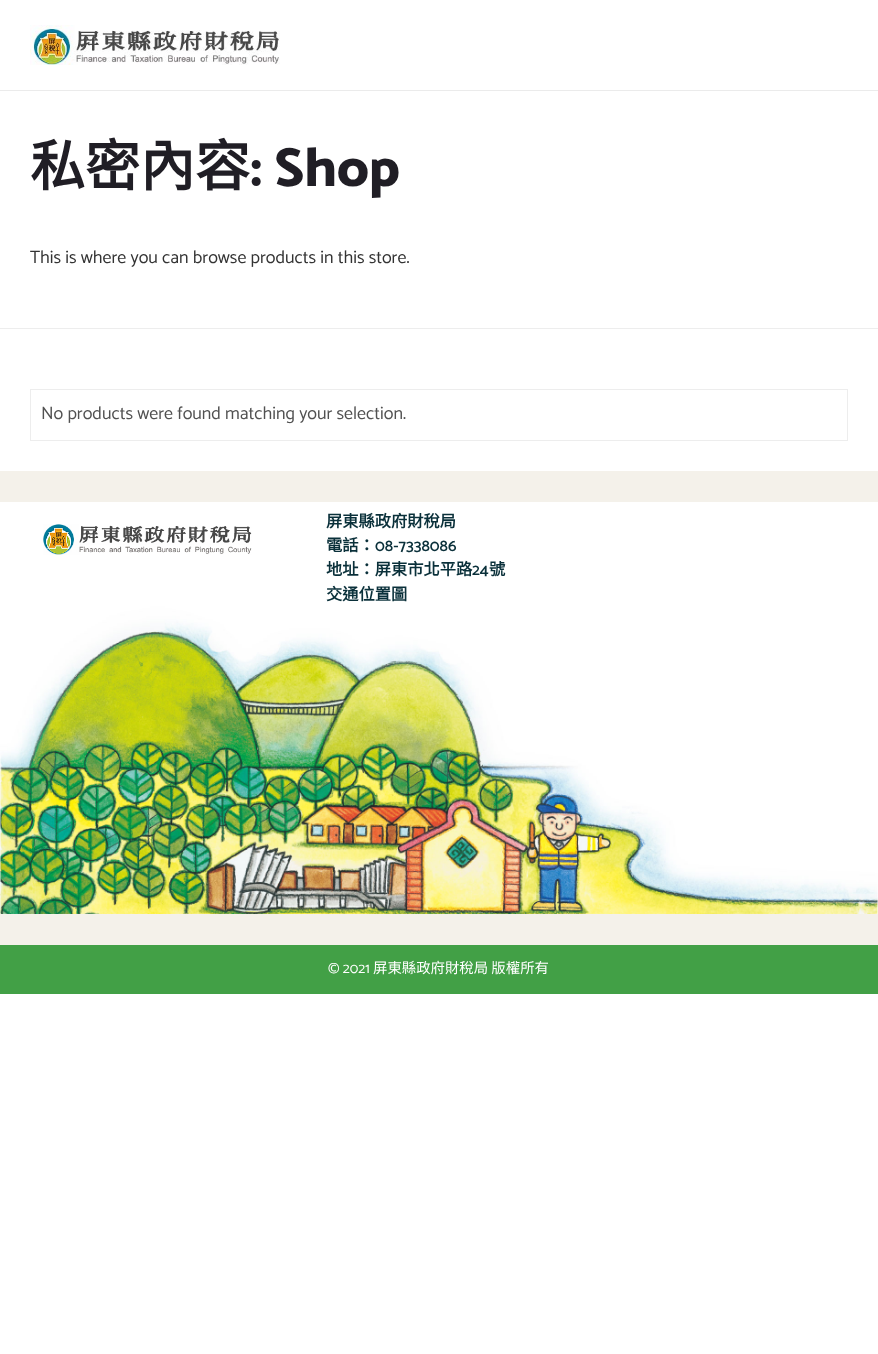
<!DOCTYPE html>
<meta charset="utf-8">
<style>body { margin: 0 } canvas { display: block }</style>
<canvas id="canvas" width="878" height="1354"></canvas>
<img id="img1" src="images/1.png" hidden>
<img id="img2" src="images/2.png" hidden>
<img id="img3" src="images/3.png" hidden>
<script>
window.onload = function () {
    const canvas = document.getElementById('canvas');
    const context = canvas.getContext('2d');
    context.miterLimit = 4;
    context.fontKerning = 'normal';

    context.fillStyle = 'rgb(255, 255, 255)';
    context.fillRect(0, 0, 878, 1354);
    context.fillStyle = 'rgb(235, 235, 235)';
    context.fillRect(0, 90, 878, 1);
    context.drawImage(document.getElementById('img1'), 30, 25, 250, 40);
    context.fillStyle = 'rgb(237, 237, 237)';
    context.fillRect(0, 328, 878, 1);
    context.strokeStyle = 'rgb(237, 237, 237)';
    context.strokeRect(30.5, 389.5, 817, 51);
    context.fillStyle = 'rgb(244, 241, 234)';
    context.fillRect(0, 471, 878, 474);
    context.drawImage(document.getElementById('img2'), 0, 502, 878, 412);
    context.drawImage(document.getElementById('img3'), 43, 524, 209, 31);
    context.fillStyle = 'rgb(66, 160, 70)';
    context.fillRect(0, 945, 878, 49);
    context.font = 'bold 55px Noto Sans CJK TC';
    context.fillStyle = 'rgb(32, 30, 37)';
    context.fillText('私密內容', 30, 186);
    context.font = '800 55px Catamaran';
    context.fillText(': Shop', 250, 186);
    context.font = '18px Catamaran';
    context.fillStyle = 'rgb(51, 51, 51)';
    context.fillText('This is where you can browse products in this store.', 30, 263);
    context.fillStyle = 'rgb(81, 81, 81)';
    context.fillText('No products were found matching your selection.', 41, 419);
    context.font = 'bold 16.25px Noto Sans CJK TC';
    context.fillStyle = 'rgb(10, 48, 58)';
    context.fillText('屏東縣政府財稅局', 326, 527);
    context.fillText('電話：', 326, 551);
    context.font = '600 16.25px Catamaran';
    context.fillText('08-7338086', 375, 551);
    context.font = 'bold 16.25px Noto Sans CJK TC';
    context.fillText('地址：屏東市北平路', 326, 575);
    context.font = '600 16.25px Catamaran';
    context.fillText('24', 472, 575);
    context.font = 'bold 16.25px Noto Sans CJK TC';
    context.fillText('號', 489, 575);
    context.fillText('交通位置圖', 326, 600);
    context.font = '14.4px Catamaran';
    context.fillStyle = 'rgb(255, 255, 255)';
    context.fillText('© 2021', 328, 973);
    context.font = '14.4px Noto Sans CJK TC';
    context.fillText('屏東縣政府財稅局 版權所有', 373, 973);
};
</script>
